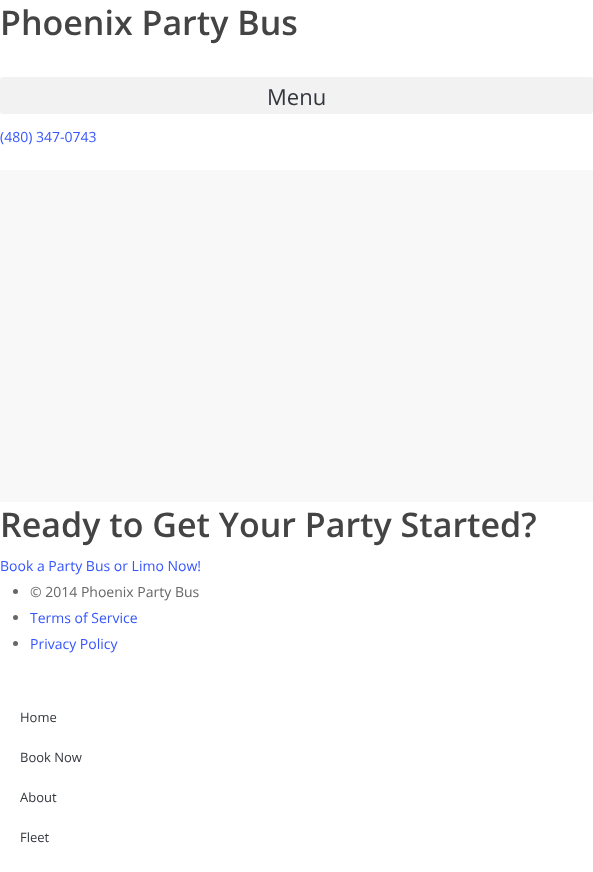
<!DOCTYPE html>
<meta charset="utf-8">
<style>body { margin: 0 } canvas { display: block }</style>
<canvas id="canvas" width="593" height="872"></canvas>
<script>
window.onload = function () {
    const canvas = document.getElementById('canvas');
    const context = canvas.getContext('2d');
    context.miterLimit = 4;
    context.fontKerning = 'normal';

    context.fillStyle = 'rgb(255, 255, 255)';
    context.fillRect(0, 0, 593, 872);
    context.fillStyle = 'rgb(242, 242, 242)';
    context.beginPath();
    context.roundRect(0, 77, 593, 37, 3);
    context.fill();
    context.fillStyle = 'rgb(248, 248, 248)';
    context.fillRect(0, 170, 593, 332);
    context.fillStyle = 'rgb(103, 103, 103)';
    context.beginPath();
    context.arc(15.5, 591.5, 2.5, 0, 2 * Math.PI);
    context.fill();
    context.beginPath();
    context.arc(15.5, 617.5, 2.5, 0, 2 * Math.PI);
    context.fill();
    context.beginPath();
    context.arc(15.5, 643.5, 2.5, 0, 2 * Math.PI);
    context.fill();
    context.font = '600 34px Open Sans';
    context.fillStyle = 'rgb(68, 68, 68)';
    context.fillText('Phoenix Party Bus', 0, 35);
    context.font = '22px Open Sans';
    context.fillStyle = 'rgb(51, 55, 61)';
    context.fillText('Menu', 267, 105);
    context.font = '14px Open Sans';
    context.fillStyle = 'rgb(53, 85, 255)';
    context.fillText('(480) 347-0743', 0, 142);
    context.font = '600 34px Open Sans';
    context.fillStyle = 'rgb(68, 68, 68)';
    context.fillText('Ready to Get Your Party Started?', 0, 537);
    context.font = '14px Open Sans';
    context.fillStyle = 'rgb(53, 85, 255)';
    context.fillText('Book a Party Bus or Limo Now!', 0, 571);
    context.fillStyle = 'rgb(103, 103, 103)';
    context.fillText('© 2014 Phoenix Party Bus', 30, 597);
    context.fillStyle = 'rgb(53, 85, 255)';
    context.fillText('Terms of Service', 30, 623);
    context.fillText('Privacy Policy', 30, 649);
    context.font = '13px Open Sans';
    context.fillStyle = 'rgb(51, 55, 61)';
    context.fillText('Home', 20, 722);
    context.fillText('Book Now', 20, 762);
    context.fillText('About', 20, 802);
    context.fillText('Fleet', 20, 842);
};
</script>
